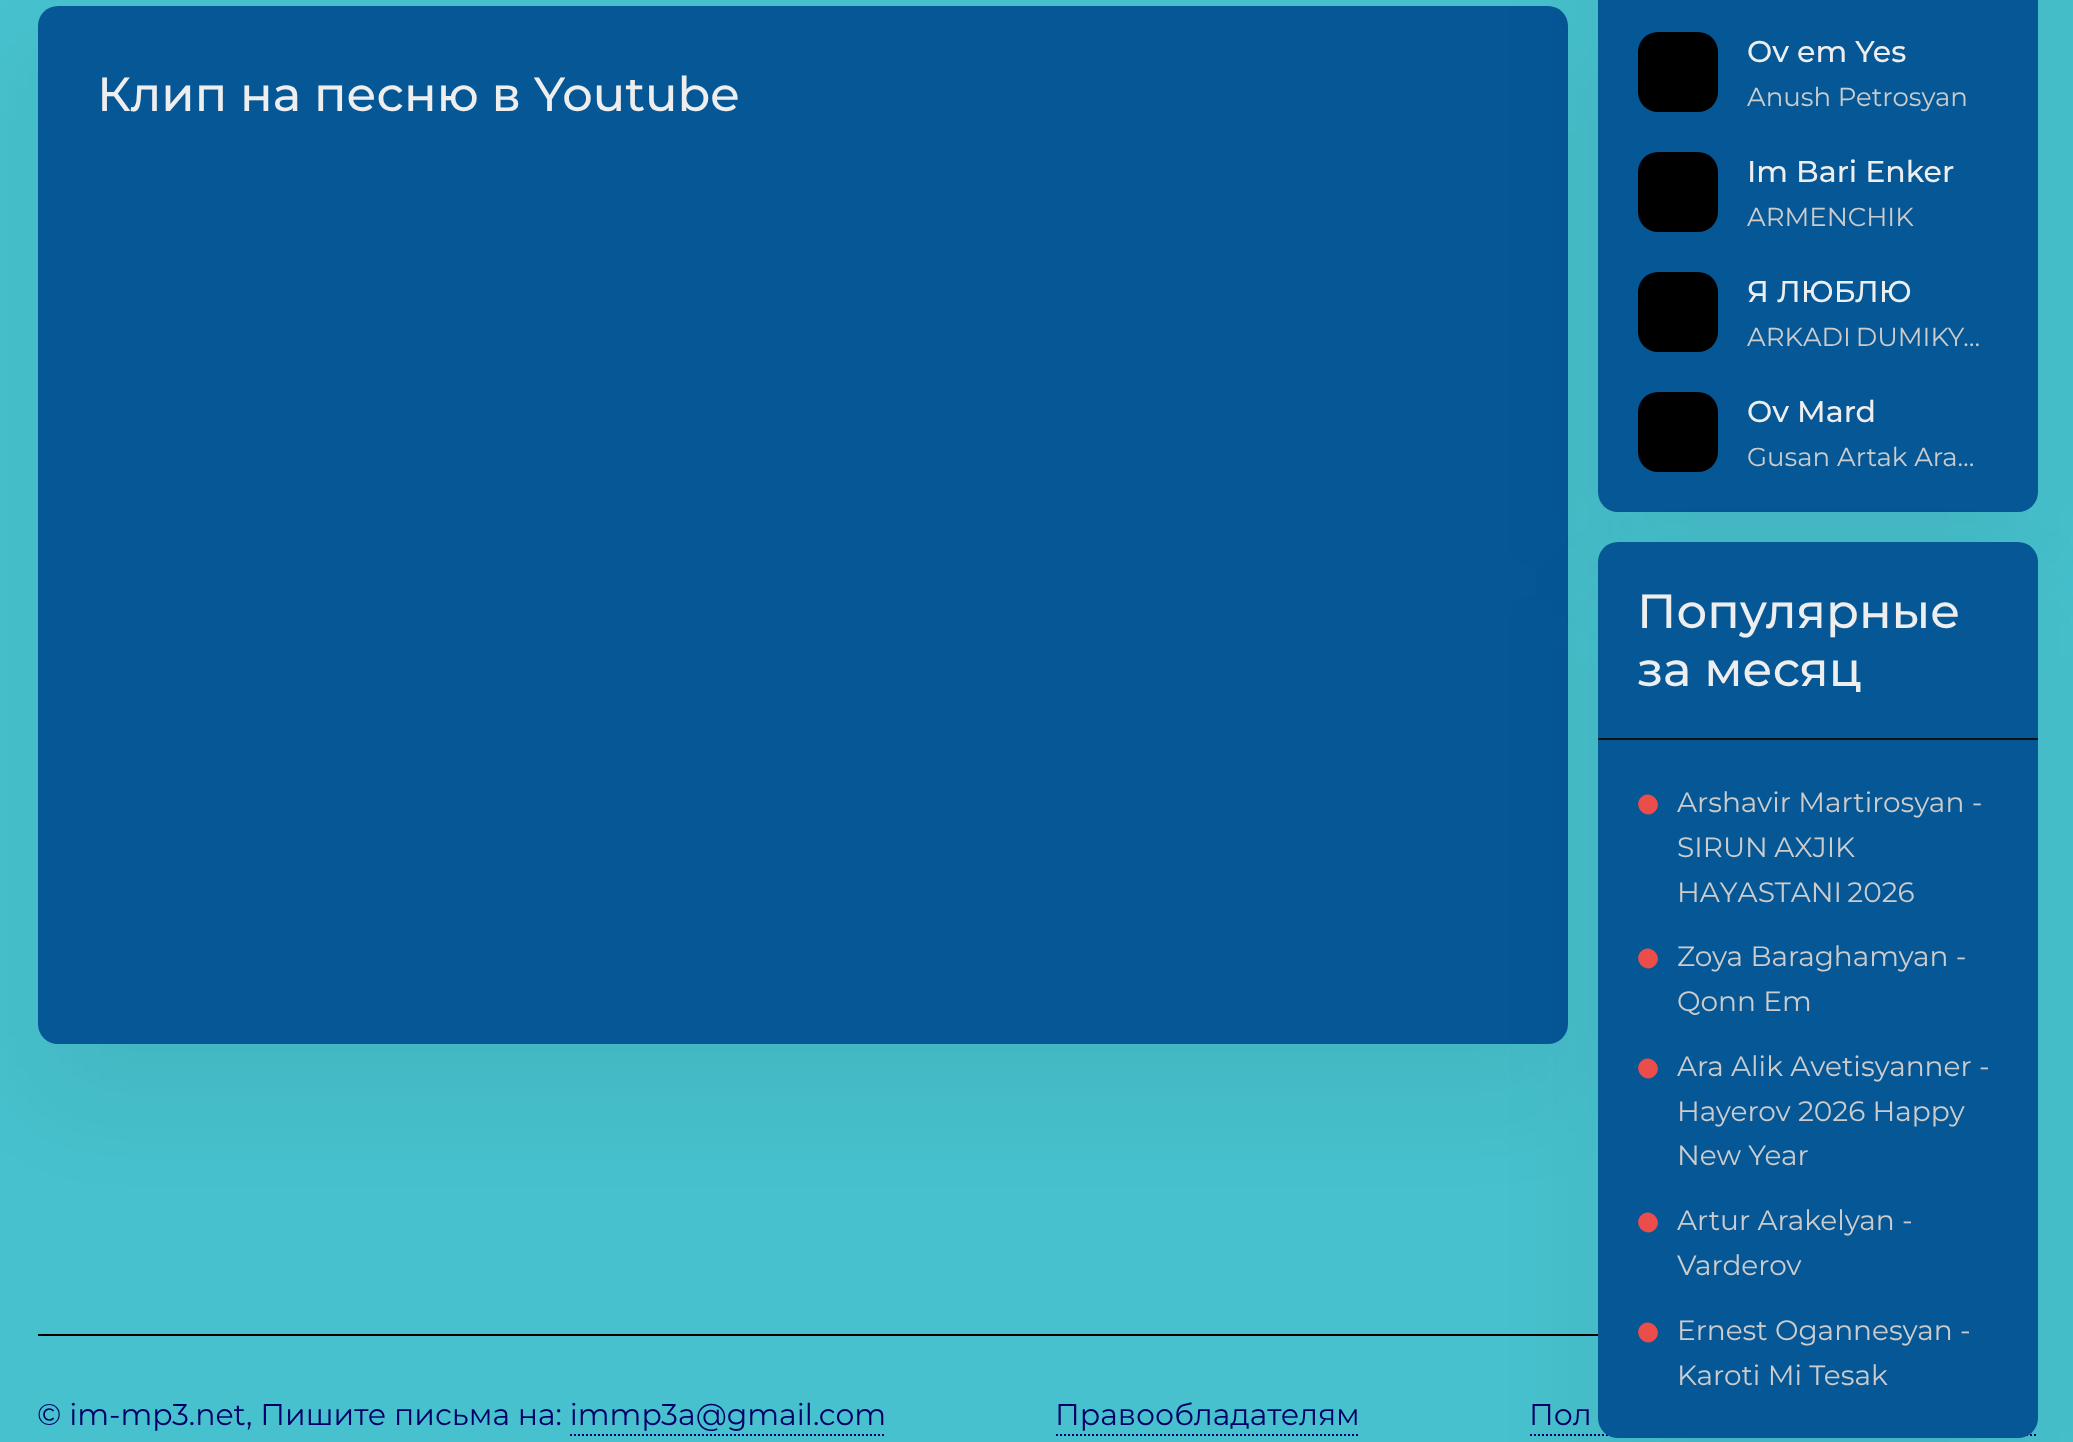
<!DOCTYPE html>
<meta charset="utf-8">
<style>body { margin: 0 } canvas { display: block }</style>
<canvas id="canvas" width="2073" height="1442"></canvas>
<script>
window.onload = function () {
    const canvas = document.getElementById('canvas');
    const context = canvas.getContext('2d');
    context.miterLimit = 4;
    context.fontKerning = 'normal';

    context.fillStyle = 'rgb(71, 193, 205)';
    context.fillRect(0, 0, 2073, 1442);
    context.fillStyle = 'rgba(0, 0, 0, 0.05)';
    context.filter = 'blur(53px)';
    context.beginPath();
    context.roundRect(38, 60, 1530, 1038, 20);
    context.fill();
    context.filter = 'none';
    context.fillStyle = 'rgb(6, 87, 150)';
    context.beginPath();
    context.roundRect(38, 6, 1530, 1038, 20);
    context.fill();
    context.fillStyle = 'rgba(0, 0, 0, 0.05)';
    context.filter = 'blur(53px)';
    context.beginPath();
    context.roundRect(1598, -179, 440, 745, 20);
    context.fill();
    context.filter = 'none';
    context.fillStyle = 'rgb(6, 87, 150)';
    context.beginPath();
    context.roundRect(1598, -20, 440, 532, 20);
    context.fill();
    context.fillStyle = 'rgb(0, 0, 0)';
    context.beginPath();
    context.roundRect(1638, 32, 80, 80, 20);
    context.fill();
    context.beginPath();
    context.roundRect(1638, 152, 80, 80, 20);
    context.fill();
    context.beginPath();
    context.roundRect(1638, 272, 80, 80, 20);
    context.fill();
    context.fillRect(38, 1334, 1560, 2);
    context.beginPath();
    context.moveTo(1530, 1435);
    context.lineTo(2038, 1435);
    context.strokeStyle = 'rgb(2, 0, 104)';
    context.lineWidth = 2;
    context.setLineDash([2, 2]);
    context.stroke();
    context.fillStyle = 'rgba(0, 0, 0, 0.05)';
    context.filter = 'blur(53px)';
    context.beginPath();
    context.roundRect(1598, 596, 440, 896, 20);
    context.fill();
    context.filter = 'none';
    context.fillStyle = 'rgb(0, 0, 0)';
    context.beginPath();
    context.roundRect(1638, 392, 80, 80, 20);
    context.fill();
    context.fillStyle = 'rgb(6, 87, 150)';
    context.beginPath();
    context.roundRect(1598, 542, 440, 896, 20);
    context.fill();
    context.fillStyle = 'rgb(17, 17, 17)';
    context.fillRect(1598, 738, 440, 2);
    context.fillStyle = 'rgb(235, 77, 75)';
    context.beginPath();
    context.moveTo(1641, 797.5);
    context.bezierCurveTo(1650, 788.5, 1664, 802.5, 1655, 811.5);
    context.bezierCurveTo(1646, 820.5, 1632, 806.5, 1641, 797.5);
    context.closePath();
    context.fill();
    context.beginPath();
    context.moveTo(1641, 951.5);
    context.bezierCurveTo(1650, 942.5, 1664, 956.5, 1655, 965.5);
    context.bezierCurveTo(1646, 974.5, 1632, 960.5, 1641, 951.5);
    context.closePath();
    context.fill();
    context.beginPath();
    context.moveTo(1641, 1061.5);
    context.bezierCurveTo(1650, 1052.5, 1664, 1066.5, 1655, 1075.5);
    context.bezierCurveTo(1646, 1084.5, 1632, 1070.5, 1641, 1061.5);
    context.closePath();
    context.fill();
    context.beginPath();
    context.moveTo(1641, 1215.5);
    context.bezierCurveTo(1650, 1206.5, 1664, 1220.5, 1655, 1229.5);
    context.bezierCurveTo(1646, 1238.5, 1632, 1224.5, 1641, 1215.5);
    context.closePath();
    context.fill();
    context.beginPath();
    context.moveTo(1641, 1325.5);
    context.bezierCurveTo(1650, 1316.5, 1664, 1330.5, 1655, 1339.5);
    context.bezierCurveTo(1646, 1348.5, 1632, 1334.5, 1641, 1325.5);
    context.closePath();
    context.fill();
    context.beginPath();
    context.moveTo(570, 1435);
    context.lineTo(886, 1435);
    context.stroke();
    context.beginPath();
    context.moveTo(1056, 1435);
    context.lineTo(1360, 1435);
    context.stroke();
    context.font = '500 48px Montserrat';
    context.fillStyle = 'rgb(238, 238, 238)';
    context.fillText('Клип на песню в Youtube', 97, 111);
    context.font = '500 30px Montserrat';
    context.fillText('Ov em Yes', 1747, 62);
    context.font = '26px Montserrat';
    context.fillStyle = 'rgb(204, 204, 204)';
    context.fillText('Anush Petrosyan', 1747, 106);
    context.font = '500 30px Montserrat';
    context.fillStyle = 'rgb(238, 238, 238)';
    context.fillText('Im Bari Enker', 1747, 182);
    context.font = '26px Montserrat';
    context.fillStyle = 'rgb(204, 204, 204)';
    context.fillText('ARMENCHIK', 1747, 226);
    context.font = '500 30px Montserrat';
    context.fillStyle = 'rgb(238, 238, 238)';
    context.fillText('Я ЛЮБЛЮ', 1747, 302);
    context.wordSpacing = '-2px';
    context.font = '26px Montserrat';
    context.fillStyle = 'rgb(204, 204, 204)';
    context.fillText('ARKADI DUMIKY…', 1747, 346);
    context.wordSpacing = '0px';
    context.font = '500 30px Montserrat';
    context.fillStyle = 'rgb(238, 238, 238)';
    context.fillText('Ov Mard', 1747, 422);
    context.font = '26px Montserrat';
    context.fillStyle = 'rgb(204, 204, 204)';
    context.fillText('Gusan Artak Ara…', 1747, 466);
    context.font = '500 48px Montserrat';
    context.fillStyle = 'rgb(238, 238, 238)';
    context.fillText('Популярные', 1637, 628);
    context.fillText('за месяц', 1637, 686);
    context.font = '28px Montserrat';
    context.fillStyle = 'rgb(204, 204, 204)';
    context.fillText('Arshavir Martirosyan -', 1677, 812);
    context.wordSpacing = '-1px';
    context.fillText('SIRUN AXJIK', 1677, 857);
    context.wordSpacing = '-2px';
    context.fillText('HAYASTANI 2026', 1677, 902);
    context.wordSpacing = '0px';
    context.fillText('Zoya Baraghamyan -', 1677, 966);
    context.fillText('Qonn Em', 1677, 1011);
    context.fillText('Ara Alik Avetisyanner -', 1677, 1076);
    context.fillText('Hayerov 2026 Happy', 1677, 1121);
    context.fillText('New Year', 1677, 1165);
    context.fillText('Artur Arakelyan -', 1677, 1230);
    context.fillText('Varderov', 1677, 1275);
    context.fillText('Ernest Ogannesyan -', 1677, 1340);
    context.fillText('Karoti Mi Tesak', 1677, 1385);
    context.font = '30px Montserrat';
    context.fillStyle = 'rgb(2, 0, 104)';
    context.fillText('© im-mp3.net, Пишите письма на: immp3a@gmail.com', 37, 1425);
    context.fillText('Правообладателям', 1055, 1425);
    context.fillText('Пол', 1529, 1425);
};
</script>
